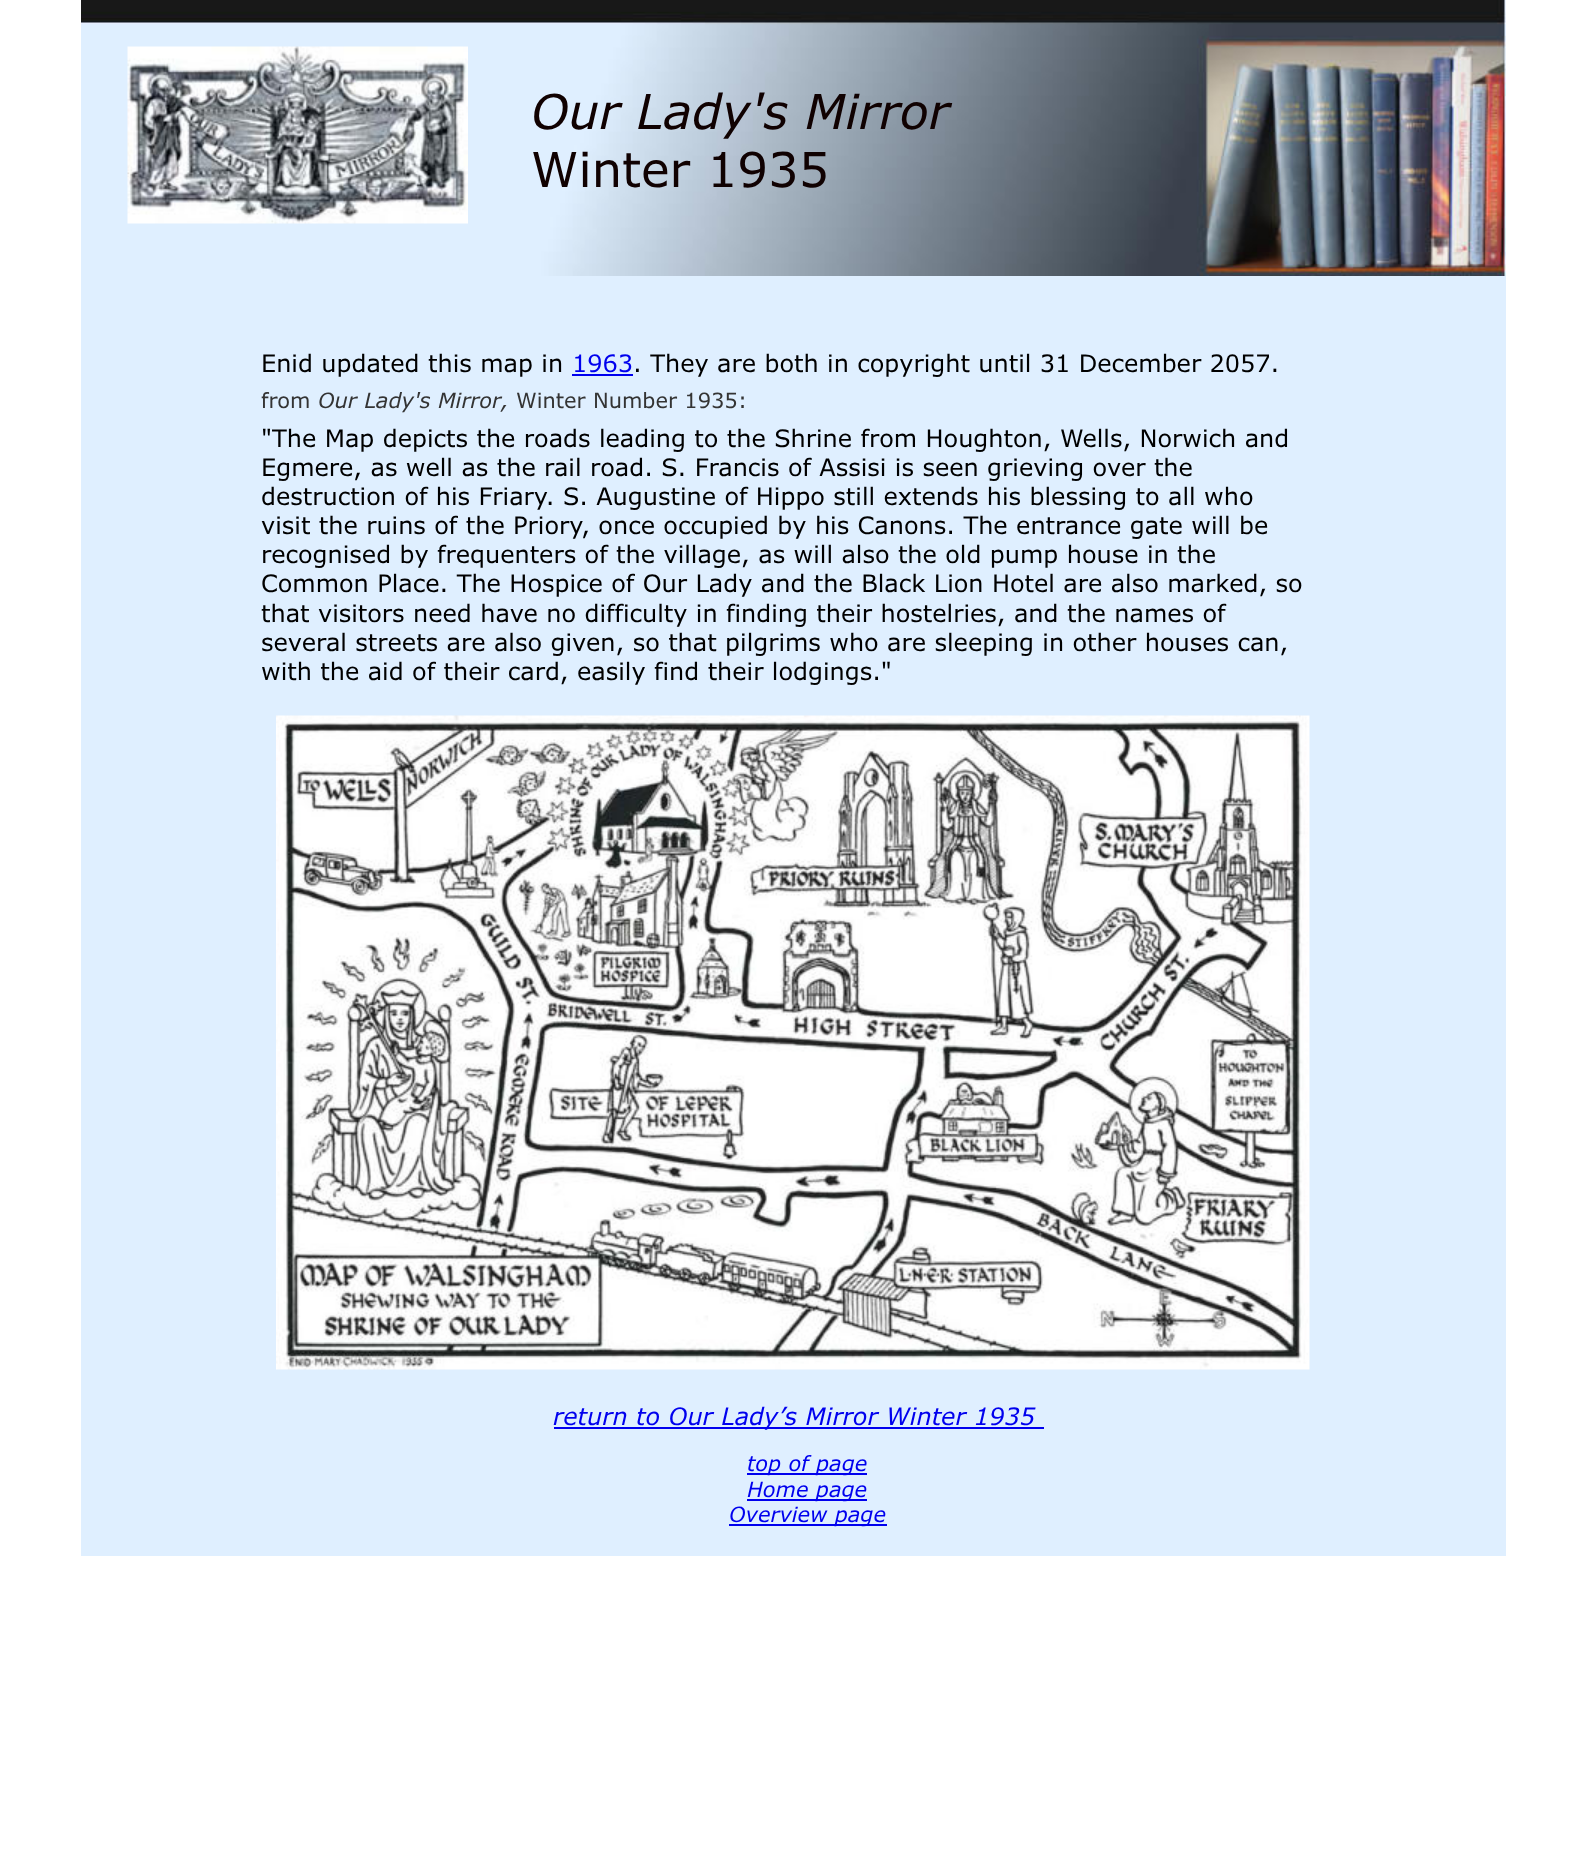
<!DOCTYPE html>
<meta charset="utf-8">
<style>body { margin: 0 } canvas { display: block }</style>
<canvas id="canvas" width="1586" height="1849"></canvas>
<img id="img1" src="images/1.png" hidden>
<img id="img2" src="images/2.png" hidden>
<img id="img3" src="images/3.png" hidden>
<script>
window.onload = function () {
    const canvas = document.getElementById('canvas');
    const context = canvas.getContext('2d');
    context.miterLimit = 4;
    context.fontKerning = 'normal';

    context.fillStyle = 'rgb(255, 255, 255)';
    context.fillRect(0, 0, 1586, 1849);
    context.drawImage(document.getElementById('img1'), 81, 0, 1425, 276);
    context.drawImage(document.getElementById('img2'), 127, 46, 341, 178);
    context.fillStyle = 'rgb(223, 239, 255)';
    context.fillRect(81, 276, 1425, 1280);
    context.fillStyle = 'rgb(0, 0, 238)';
    context.fillRect(572, 374, 61, 2);
    context.drawImage(document.getElementById('img3'), 276, 715, 1034, 655);
    context.fillRect(554, 1427, 490, 2);
    context.fillRect(747, 1473, 120, 2);
    context.fillRect(747, 1499, 120, 2);
    context.fillRect(729, 1524, 158, 2);
    context.font = 'italic 48px Verdana';
    context.fillStyle = 'rgb(16, 1, 1)';
    context.fillText('Our Lady\'s Mirror', 531, 129);
    context.font = '48px Verdana';
    context.fillText('Winter 1935', 531, 187);
    context.font = '24px Verdana';
    context.fillStyle = 'rgb(0, 0, 0)';
    context.fillText('Enid updated this map in', 261, 372);
    context.fillStyle = 'rgb(0, 0, 238)';
    context.fillText('1963', 572, 372);
    context.fillStyle = 'rgb(0, 0, 0)';
    context.fillText('. They are both in copyright until 31 December 2057.', 633, 372);
    context.font = '21px Verdana';
    context.fillStyle = 'rgb(52, 52, 52)';
    context.fillText('from', 261, 408);
    context.font = 'italic 21px Verdana';
    context.fillText('Our Lady\'s Mirror,', 318, 408);
    context.font = '21px Verdana';
    context.fillText('Winter Number 1935:', 516, 408);
    context.font = '24px Verdana';
    context.fillStyle = 'rgb(0, 0, 0)';
    context.fillText('"The Map depicts the roads leading to the Shrine from Houghton, Wells, Norwich and', 261, 447);
    context.fillText('Egmere, as well as the rail road. S. Francis of Assisi is seen grieving over the', 261, 476);
    context.fillText('destruction of his Friary. S. Augustine of Hippo still extends his blessing to all who', 261, 505);
    context.fillText('visit the ruins of the Priory, once occupied by his Canons. The entrance gate will be', 261, 534);
    context.fillText('recognised by frequenters of the village, as will also the old pump house in the', 261, 563);
    context.fillText('Common Place. The Hospice of Our Lady and the Black Lion Hotel are also marked, so', 261, 592);
    context.fillText('that visitors need have no difficulty in finding their hostelries, and the names of', 261, 622);
    context.fillText('several streets are also given, so that pilgrims who are sleeping in other houses can,', 261, 651);
    context.fillText('with the aid of their card, easily find their lodgings."', 261, 680);
    context.font = 'italic 24px Verdana';
    context.fillStyle = 'rgb(0, 0, 238)';
    context.fillText('return to Our Lady’s Mirror Winter 1935', 553, 1425);
    context.font = 'italic 21px Verdana';
    context.fillText('top of page', 747, 1471);
    context.fillText('Home page', 747, 1497);
    context.fillText('Overview page', 729, 1522);
};
</script>
